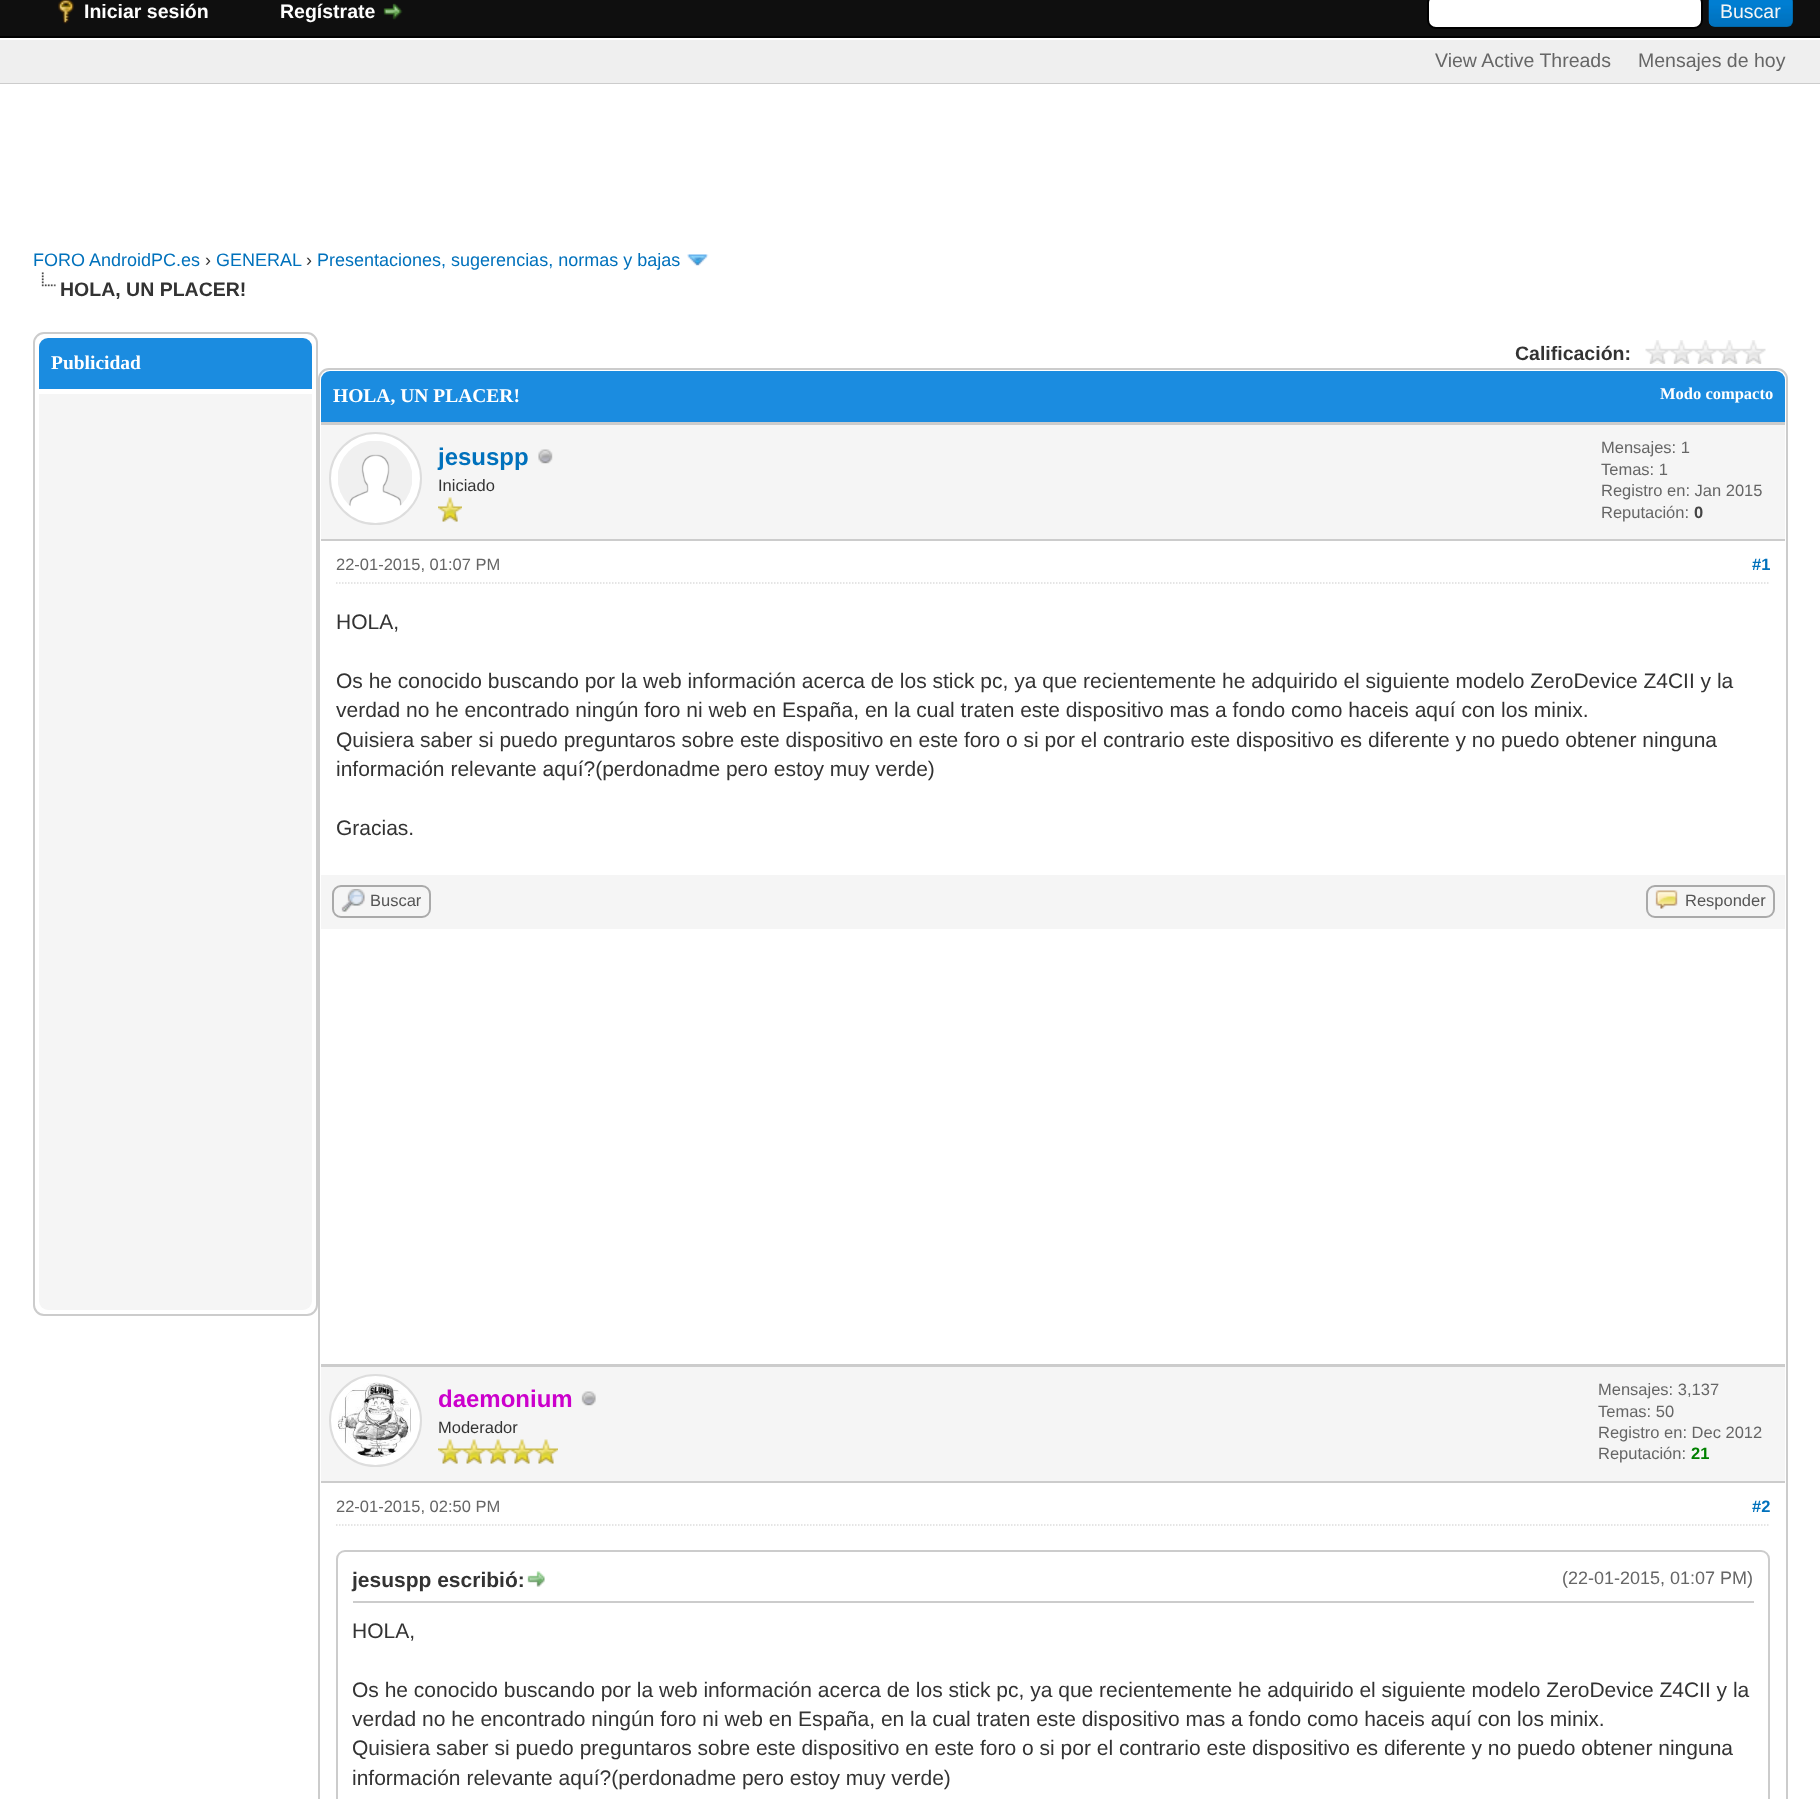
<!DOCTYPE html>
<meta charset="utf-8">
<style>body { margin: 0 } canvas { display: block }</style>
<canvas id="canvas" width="1820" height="1799"></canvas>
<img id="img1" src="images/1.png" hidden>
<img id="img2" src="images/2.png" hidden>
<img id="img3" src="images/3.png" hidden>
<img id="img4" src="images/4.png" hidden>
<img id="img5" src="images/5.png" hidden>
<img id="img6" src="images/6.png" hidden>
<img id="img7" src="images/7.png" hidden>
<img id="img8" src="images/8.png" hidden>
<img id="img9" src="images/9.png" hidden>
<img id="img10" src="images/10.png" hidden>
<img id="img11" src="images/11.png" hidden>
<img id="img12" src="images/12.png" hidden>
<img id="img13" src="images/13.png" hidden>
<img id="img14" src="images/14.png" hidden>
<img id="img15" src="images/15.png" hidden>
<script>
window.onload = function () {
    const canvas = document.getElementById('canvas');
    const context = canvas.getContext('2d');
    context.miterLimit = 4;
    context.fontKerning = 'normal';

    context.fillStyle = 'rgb(15, 15, 15)';
    context.fillRect(0, 0, 1820, 1799);
    context.fillStyle = 'rgb(0, 0, 0)';
    context.fillRect(0, 36, 1820, 2);
    context.drawImage(document.getElementById('img1'), 58, 0, 16, 24);
    context.drawImage(document.getElementById('img2'), 383, 3, 20, 17);
    context.fillStyle = 'rgb(255, 255, 255)';
    context.beginPath();
    context.roundRect(1428, -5, 274, 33, 8);
    context.fill();
    context.strokeStyle = 'rgb(0, 0, 0)';
    context.lineWidth = 2;
    context.stroke();
    context.fillStyle = 'rgb(0, 102, 162)';
    context.beginPath();
    context.roundRect(1709, -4, 84, 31, 6);
    context.fill();
    context.drawImage(document.getElementById('img3'), 1708, 0, 85, 27);
    context.fillStyle = 'rgb(239, 239, 239)';
    context.fillRect(0, 40, 1820, 43);
    context.fillStyle = 'rgb(255, 255, 255)';
    context.fillRect(0, 38, 1820, 2);
    context.fillStyle = 'rgb(204, 204, 204)';
    context.fillRect(0, 83, 1820, 1);
    context.fillStyle = 'rgb(255, 255, 255)';
    context.fillRect(0, 84, 1820, 1715);
    context.drawImage(document.getElementById('img4'), 687, 254, 22, 12);
    context.drawImage(document.getElementById('img5'), 41, 272, 15, 15);
    context.beginPath();
    context.roundRect(34, 333, 283, 982, 10);
    context.strokeStyle = 'rgb(204, 204, 204)';
    context.stroke();
    context.fillStyle = 'rgb(27, 140, 224)';
    context.beginPath();
    context.roundRect(39, 338, 273, 51, [9, 9, 0, 0]);
    context.fill();
    context.fillStyle = 'rgb(245, 245, 245)';
    context.beginPath();
    context.roundRect(39, 392, 273, 918, [0, 0, 9, 9]);
    context.fill();
    context.fillStyle = 'rgb(255, 255, 255)';
    context.fillRect(39, 392, 273, 2);
    context.drawImage(document.getElementById('img6'), 1645, 340, 121, 24);
    context.beginPath();
    context.roundRect(319, 369, 1468, 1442, 10);
    context.stroke();
    context.fillStyle = 'rgb(27, 140, 224)';
    context.beginPath();
    context.roundRect(321, 371, 1464, 51, [9, 9, 0, 0]);
    context.fill();
    context.fillStyle = 'rgb(245, 245, 245)';
    context.fillRect(321, 425, 1464, 114);
    context.fillStyle = 'rgb(204, 204, 204)';
    context.fillRect(321, 422, 1464, 3);
    context.fillRect(321, 539, 1464, 2);
    context.fillStyle = 'rgb(255, 255, 255)';
    context.beginPath();
    context.arc(375.5, 478.5, 45.5, 0, 2 * Math.PI);
    context.fill();
    context.strokeStyle = 'rgb(221, 221, 221)';
    context.stroke();
    context.drawImage(document.getElementById('img7'), 338, 441, 74, 66);
    context.drawImage(document.getElementById('img8'), 538, 449, 15, 15);
    context.drawImage(document.getElementById('img9'), 438, 497, 24, 25);
    context.beginPath();
    context.moveTo(336, 583);
    context.lineTo(1770, 583);
    context.lineWidth = 1.5;
    context.setLineDash([1.5, 1.5]);
    context.stroke();
    context.fillStyle = 'rgb(245, 245, 245)';
    context.fillRect(321, 875, 1464, 54);
    context.beginPath();
    context.roundRect(333, 886, 97, 31, 8);
    context.strokeStyle = 'rgb(170, 170, 170)';
    context.lineWidth = 2;
    context.setLineDash([]);
    context.stroke();
    context.drawImage(document.getElementById('img10'), 341, 889, 24, 23);
    context.beginPath();
    context.roundRect(1647, 886, 127, 31, 8);
    context.stroke();
    context.drawImage(document.getElementById('img11'), 1655, 890, 23, 19);
    context.fillRect(321, 1367, 1464, 114);
    context.fillStyle = 'rgb(204, 204, 204)';
    context.fillRect(321, 1364, 1464, 3);
    context.fillRect(321, 1481, 1464, 2);
    context.fillStyle = 'rgb(255, 255, 255)';
    context.beginPath();
    context.arc(375.5, 1420.5, 45.5, 0, 2 * Math.PI);
    context.fill();
    context.strokeStyle = 'rgb(221, 221, 221)';
    context.stroke();
    context.drawImage(document.getElementById('img12'), 337, 1382, 74, 75);
    context.drawImage(document.getElementById('img13'), 581, 1391, 15, 15);
    context.drawImage(document.getElementById('img9'), 438, 1439, 24, 25);
    context.drawImage(document.getElementById('img9'), 462, 1439, 24, 25);
    context.drawImage(document.getElementById('img9'), 486, 1439, 24, 25);
    context.drawImage(document.getElementById('img14'), 510, 1439, 24, 25);
    context.drawImage(document.getElementById('img14'), 534, 1439, 24, 25);
    context.beginPath();
    context.moveTo(336, 1525);
    context.lineTo(1770, 1525);
    context.lineWidth = 1.5;
    context.setLineDash([1.5, 1.5]);
    context.stroke();
    context.beginPath();
    context.roundRect(337, 1551, 1432, 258, 8);
    context.strokeStyle = 'rgb(204, 204, 204)';
    context.lineWidth = 2;
    context.setLineDash([]);
    context.stroke();
    context.fillStyle = 'rgb(204, 204, 204)';
    context.fillRect(353, 1601, 1401, 2);
    context.drawImage(document.getElementById('img15'), 527, 1571, 18, 16);
    context.font = 'bold 19.5px Liberation Sans';
    context.fillStyle = 'rgb(255, 255, 255)';
    context.fillText('Iniciar sesión', 84, 18);
    context.fillText('Regístrate', 280, 18);
    context.font = '19.5px Liberation Sans';
    context.fillStyle = 'rgb(245, 245, 245)';
    context.fillText('Buscar', 1720, 18);
    context.fillStyle = 'rgb(102, 102, 102)';
    context.fillText('View Active Threads', 1435, 67);
    context.fillText('Mensajes de hoy', 1638, 67);
    context.font = '18px Liberation Sans';
    context.fillStyle = 'rgb(0, 113, 188)';
    context.fillText('FORO AndroidPC.es', 33, 266);
    context.fillStyle = 'rgb(51, 51, 51)';
    context.fillText('›', 205, 266);
    context.fillStyle = 'rgb(0, 113, 188)';
    context.fillText('GENERAL', 216, 266);
    context.fillStyle = 'rgb(51, 51, 51)';
    context.fillText('›', 306, 266);
    context.fillStyle = 'rgb(0, 113, 188)';
    context.fillText('Presentaciones, sugerencias, normas y bajas', 317, 266);
    context.font = 'bold 19.5px Liberation Sans';
    context.fillStyle = 'rgb(51, 51, 51)';
    context.fillText('HOLA, UN PLACER!', 60, 296);
    context.font = 'bold 19.5px Liberation Serif';
    context.fillStyle = 'rgb(255, 255, 255)';
    context.fillText('Publicidad', 51, 369);
    context.font = 'bold 19.5px Liberation Sans';
    context.fillStyle = 'rgb(51, 51, 51)';
    context.fillText('Calificación:', 1515, 360);
    context.font = 'bold 19.5px Liberation Serif';
    context.fillStyle = 'rgb(255, 255, 255)';
    context.fillText('HOLA, UN PLACER!', 333, 402);
    context.font = 'bold 16.5px Liberation Serif';
    context.fillText('Modo compacto', 1660, 399);
    context.font = 'bold 24px Liberation Sans';
    context.fillStyle = 'rgb(0, 113, 188)';
    context.fillText('jesuspp', 438, 465);
    context.font = '16.5px Liberation Sans';
    context.fillStyle = 'rgb(51, 51, 51)';
    context.fillText('Iniciado', 438, 491);
    context.fillStyle = 'rgb(102, 102, 102)';
    context.fillText('Mensajes: 1', 1601, 453);
    context.fillText('Temas: 1', 1601, 475);
    context.fillText('Registro en: Jan 2015', 1601, 496);
    context.fillText('Reputación:', 1601, 518);
    context.font = 'bold 16.5px Liberation Sans';
    context.fillStyle = 'rgb(68, 68, 68)';
    context.fillText('0', 1694, 518);
    context.font = '16.5px Liberation Sans';
    context.fillStyle = 'rgb(102, 102, 102)';
    context.fillText('22-01-2015, 01:07 PM', 336, 570);
    context.font = 'bold 16.5px Liberation Sans';
    context.fillStyle = 'rgb(0, 113, 188)';
    context.fillText('#1', 1752, 570);
    context.font = '21px Liberation Sans';
    context.fillStyle = 'rgb(51, 51, 51)';
    context.fillText('HOLA,', 336, 629);
    context.fillText('Os he conocido buscando por la web información acerca de los stick pc, ya que recientemente he adquirido el siguiente modelo ZeroDevice Z4CII y la', 336, 688);
    context.fillText('verdad no he encontrado ningún foro ni web en España, en la cual traten este dispositivo mas a fondo como haceis aquí con los minix.', 336, 717);
    context.fillText('Quisiera saber si puedo preguntaros sobre este dispositivo en este foro o si por el contrario este dispositivo es diferente y no puedo obtener ninguna', 336, 747);
    context.fillText('información relevante aquí?(perdonadme pero estoy muy verde)', 336, 776);
    context.fillText('Gracias.', 336, 835);
    context.font = '16.5px Liberation Sans';
    context.fillStyle = 'rgb(85, 85, 85)';
    context.fillText('Buscar', 370, 906);
    context.fillText('Responder', 1685, 906);
    context.font = 'bold 24px Liberation Sans';
    context.fillStyle = 'rgb(204, 0, 204)';
    context.fillText('daemonium', 438, 1407);
    context.font = '16.5px Liberation Sans';
    context.fillStyle = 'rgb(51, 51, 51)';
    context.fillText('Moderador', 438, 1433);
    context.fillStyle = 'rgb(102, 102, 102)';
    context.fillText('Mensajes: 3,137', 1598, 1395);
    context.fillText('Temas: 50', 1598, 1417);
    context.fillText('Registro en: Dec 2012', 1598, 1438);
    context.fillText('Reputación:', 1598, 1459);
    context.font = 'bold 16.5px Liberation Sans';
    context.fillStyle = 'rgb(0, 128, 0)';
    context.fillText('21', 1691, 1459);
    context.font = '16.5px Liberation Sans';
    context.fillStyle = 'rgb(102, 102, 102)';
    context.fillText('22-01-2015, 02:50 PM', 336, 1512);
    context.font = 'bold 16.5px Liberation Sans';
    context.fillStyle = 'rgb(0, 113, 188)';
    context.fillText('#2', 1752, 1512);
    context.font = 'bold 21px Liberation Sans';
    context.fillStyle = 'rgb(51, 51, 51)';
    context.fillText('jesuspp escribió:', 352, 1587);
    context.font = '18px Liberation Sans';
    context.fillStyle = 'rgb(102, 102, 102)';
    context.fillText('(22-01-2015, 01:07 PM)', 1562, 1584);
    context.font = '21px Liberation Sans';
    context.fillStyle = 'rgb(51, 51, 51)';
    context.fillText('HOLA,', 352, 1638);
    context.fillText('Os he conocido buscando por la web información acerca de los stick pc, ya que recientemente he adquirido el siguiente modelo ZeroDevice Z4CII y la', 352, 1697);
    context.fillText('verdad no he encontrado ningún foro ni web en España, en la cual traten este dispositivo mas a fondo como haceis aquí con los minix.', 352, 1726);
    context.fillText('Quisiera saber si puedo preguntaros sobre este dispositivo en este foro o si por el contrario este dispositivo es diferente y no puedo obtener ninguna', 352, 1755);
    context.fillText('información relevante aquí?(perdonadme pero estoy muy verde)', 352, 1785);
};
</script>
